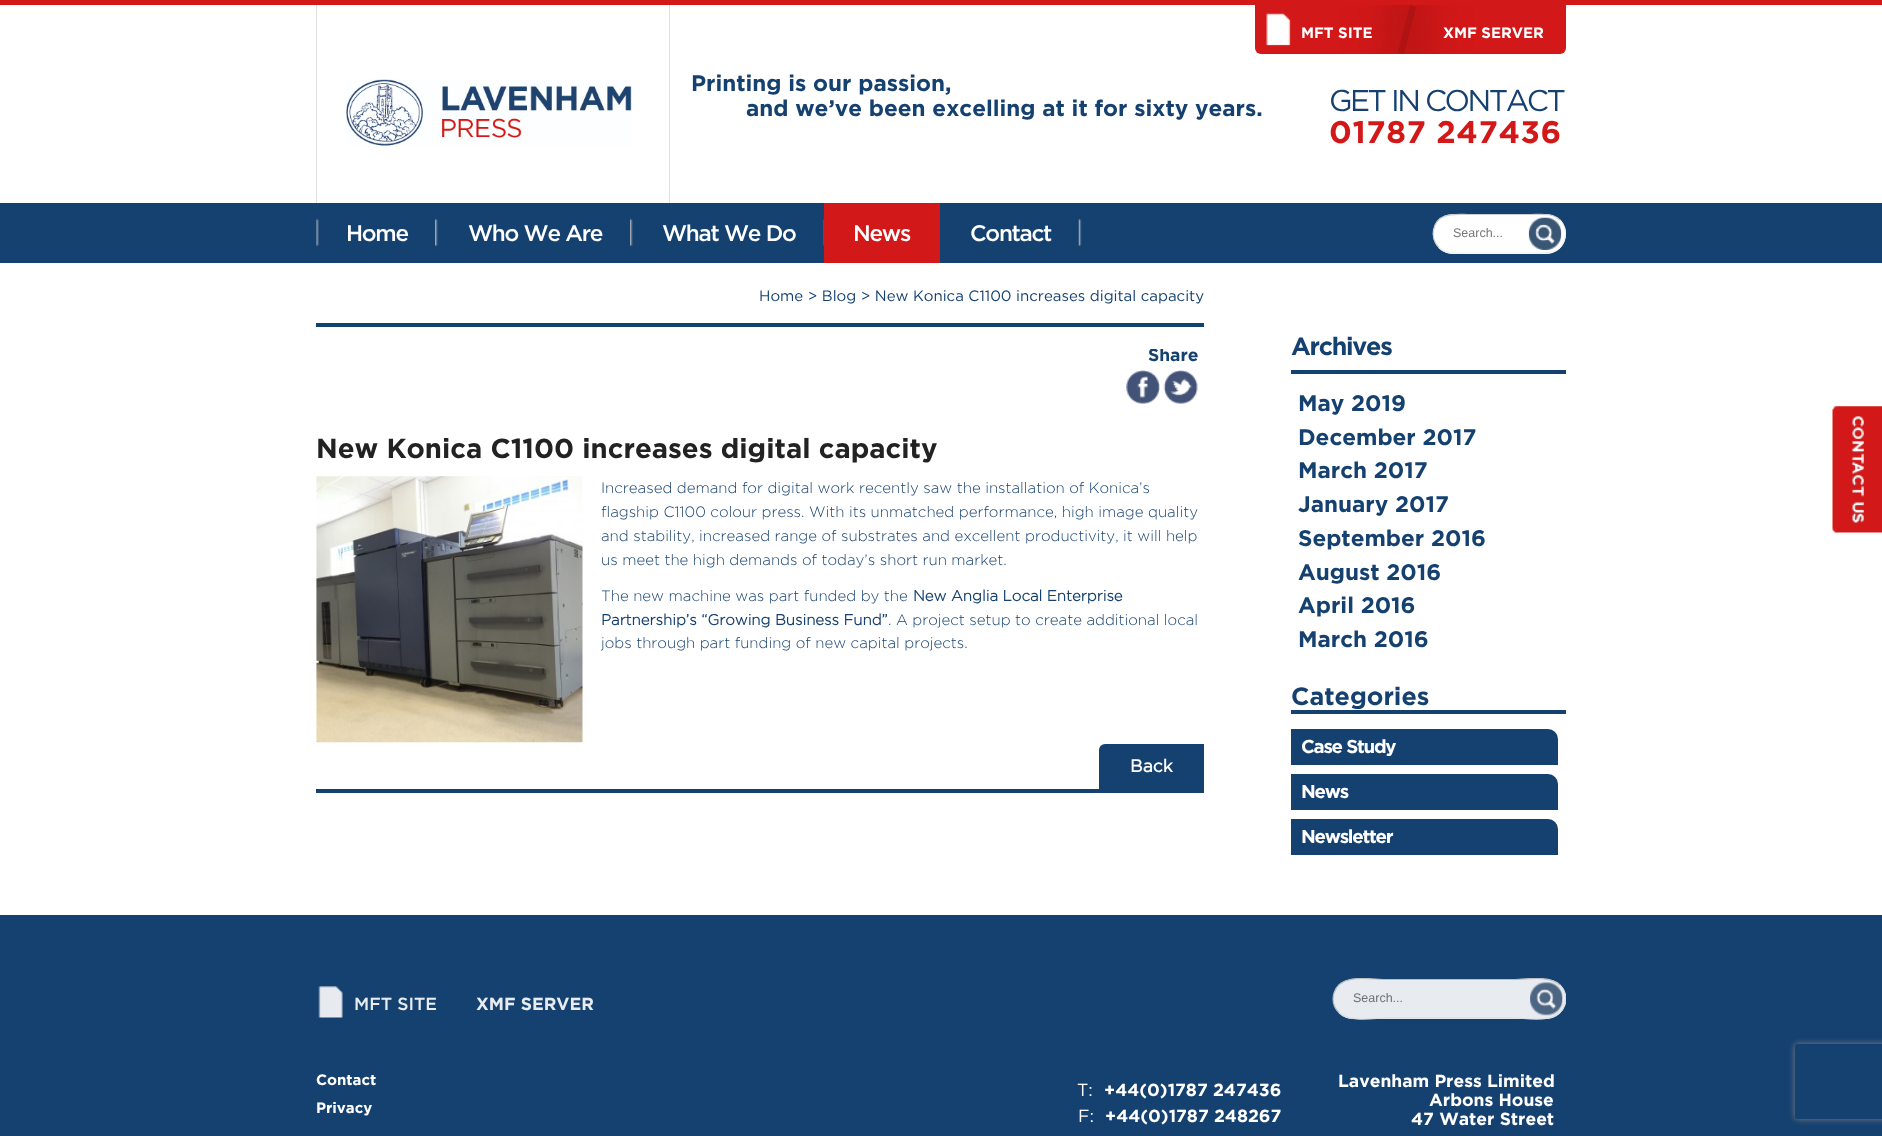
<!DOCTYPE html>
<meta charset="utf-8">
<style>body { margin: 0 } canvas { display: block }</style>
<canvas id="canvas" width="1882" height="1136"></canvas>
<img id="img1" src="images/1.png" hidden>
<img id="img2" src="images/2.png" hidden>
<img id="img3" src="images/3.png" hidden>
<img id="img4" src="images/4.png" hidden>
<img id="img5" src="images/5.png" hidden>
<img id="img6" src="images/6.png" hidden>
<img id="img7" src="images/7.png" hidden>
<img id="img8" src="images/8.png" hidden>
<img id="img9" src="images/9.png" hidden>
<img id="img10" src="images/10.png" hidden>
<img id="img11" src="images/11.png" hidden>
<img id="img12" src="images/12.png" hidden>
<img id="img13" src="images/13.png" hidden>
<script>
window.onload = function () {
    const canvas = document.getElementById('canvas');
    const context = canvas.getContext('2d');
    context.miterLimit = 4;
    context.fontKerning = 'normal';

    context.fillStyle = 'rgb(255, 255, 255)';
    context.fillRect(0, 0, 1882, 1136);
    context.fillStyle = 'rgb(211, 24, 25)';
    context.fillRect(0, 0, 1882, 5);
    context.fillStyle = 'rgb(223, 223, 223)';
    context.fillRect(669, 5, 1, 198);
    context.fillRect(316, 5, 1, 198);
    context.drawImage(document.getElementById('img1'), 346, 79, 287, 67);
    context.fillStyle = 'rgb(211, 24, 25)';
    context.beginPath();
    context.roundRect(1255, 5, 311, 49, [0, 0, 6, 6]);
    context.fill();
    context.drawImage(document.getElementById('img2'), 1266, 13, 25, 33);
    context.save();
    context.beginPath();
    context.rect(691, 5, 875, 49);
    context.clip();
    context.fillStyle = 'rgba(175, 19, 19, 0.7)';
    context.filter = 'blur(19px)';
    context.beginPath();
    context.rect(1385, -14, 44, 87);
    context.fill();
    context.filter = 'none';
    context.restore();
    context.fillStyle = 'rgb(175, 19, 19)';
    context.beginPath();
    context.moveTo(1410, 5);
    context.lineTo(1416, 7);
    context.lineTo(1404, 54);
    context.lineTo(1398, 52);
    context.closePath();
    context.fill();
    context.fillStyle = 'rgb(21, 65, 112)';
    context.fillRect(0, 203, 1882, 60);
    context.drawImage(document.getElementById('img3'), 316, 218, 3, 29);
    context.drawImage(document.getElementById('img4'), 435, 218, 3, 29);
    context.drawImage(document.getElementById('img4'), 630, 218, 3, 29);
    context.drawImage(document.getElementById('img5'), 823, 219, 1, 27);
    context.fillStyle = 'rgb(211, 24, 25)';
    context.fillRect(824, 203, 116, 60);
    context.drawImage(document.getElementById('img6'), 1078, 218, 4, 29);
    context.fillStyle = 'rgb(255, 255, 255)';
    context.beginPath();
    context.roundRect(1433, 214, 133, 40, 20);
    context.fill();
    context.beginPath();
    context.moveTo(1560, 220);
    context.bezierCurveTo(1564.5, 224.5, 1566.5, 231.5, 1565, 237.5);
    context.bezierCurveTo(1561.5, 255.5, 1544.5, 253, 1530.5, 253);
    context.lineTo(1468, 253);
    context.bezierCurveTo(1458, 253, 1446.5, 255, 1439, 247.5);
    context.strokeStyle = 'rgb(239, 239, 239)';
    context.lineWidth = 1.2;
    context.stroke();
    context.beginPath();
    context.moveTo(1439, 247.5);
    context.bezierCurveTo(1434.5, 243, 1432, 236, 1433.5, 230);
    context.bezierCurveTo(1437, 212, 1454, 214.5, 1468, 214.5);
    context.lineTo(1530.5, 214.5);
    context.bezierCurveTo(1540.5, 214.5, 1552, 212.5, 1560, 220);
    context.strokeStyle = 'rgb(204, 204, 204)';
    context.stroke();
    context.drawImage(document.getElementById('img7'), 1528, 217, 34, 33);
    context.fillStyle = 'rgb(21, 65, 112)';
    context.fillRect(316, 323, 888, 4);
    context.drawImage(document.getElementById('img8'), 1126, 370, 34, 34);
    context.drawImage(document.getElementById('img9'), 1163, 370, 35, 34);
    context.drawImage(document.getElementById('img10'), 316, 476, 267, 267);
    context.fillRect(316, 789, 888, 4);
    context.beginPath();
    context.roundRect(1099, 744, 105, 45, [6, 0, 0, 0]);
    context.fill();
    context.fillRect(1291, 370, 275, 4);
    context.fillRect(1291, 710, 275, 4);
    context.beginPath();
    context.roundRect(1291, 729, 267, 36, [0, 10, 0, 0]);
    context.fill();
    context.beginPath();
    context.roundRect(1291, 774, 267, 36, [0, 10, 0, 0]);
    context.fill();
    context.beginPath();
    context.roundRect(1291, 819, 267, 36, [0, 10, 0, 0]);
    context.fill();
    context.fillRect(0, 915, 1882, 221);
    context.drawImage(document.getElementById('img11'), 318, 986, 25, 32);
    context.fillStyle = 'rgb(232, 236, 241)';
    context.beginPath();
    context.roundRect(1333, 979, 233, 40, 20);
    context.fill();
    context.save();
    context.beginPath();
    context.rect(316, 978, 1250, 56);
    context.clip();
    context.beginPath();
    context.moveTo(1560, 985);
    context.bezierCurveTo(1565, 990, 1567, 997.5, 1565, 1004.5);
    context.bezierCurveTo(1558.5, 1025, 1528, 1018, 1514, 1018);
    context.lineTo(1385, 1018);
    context.bezierCurveTo(1375.5, 1018, 1349.5, 1023, 1339, 1012.5);
    context.strokeStyle = 'rgb(217, 222, 226)';
    context.stroke();
    context.beginPath();
    context.moveTo(1339, 1012.5);
    context.bezierCurveTo(1334, 1007.5, 1332, 1000, 1334, 993);
    context.bezierCurveTo(1340, 972.5, 1371, 979.5, 1385, 979.5);
    context.lineTo(1514, 979.5);
    context.bezierCurveTo(1523, 979.5, 1549.5, 974.5, 1560, 985);
    context.strokeStyle = 'rgb(186, 190, 195)';
    context.stroke();
    context.restore();
    context.drawImage(document.getElementById('img12'), 1530, 982, 33, 34);
    context.drawImage(document.getElementById('img13'), 1832, 406, 50, 127);
    context.save();
    context.beginPath();
    context.moveTo(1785, 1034);
    context.lineTo(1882, 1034);
    context.lineTo(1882, 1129);
    context.lineTo(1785, 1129);
    context.closePath();
    context.moveTo(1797.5, 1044);
    context.lineTo(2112.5, 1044);
    context.bezierCurveTo(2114, 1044, 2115, 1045, 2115, 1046.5);
    context.lineTo(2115, 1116.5);
    context.bezierCurveTo(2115, 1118, 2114, 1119, 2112.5, 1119);
    context.lineTo(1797.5, 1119);
    context.bezierCurveTo(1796, 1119, 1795, 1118, 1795, 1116.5);
    context.lineTo(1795, 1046.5);
    context.bezierCurveTo(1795, 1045, 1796, 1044, 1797.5, 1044);
    context.closePath();
    context.clip('evenodd');
    context.fillStyle = 'rgb(128, 128, 128)';
    context.filter = 'blur(3px)';
    context.beginPath();
    context.roundRect(1795, 1044, 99, 75, 2.5);
    context.fill();
    context.filter = 'none';
    context.restore();
    context.font = 'bold 15px Gotham';
    context.fillStyle = 'rgb(255, 255, 255)';
    context.fillText('MFT SITE', 1301, 38);
    context.fillText('XMF SERVER', 1443, 38);
    context.font = 'bold 22.5px Gotham';
    context.fillStyle = 'rgb(21, 65, 112)';
    context.fillText('Printing is our passion,', 691, 91);
    context.fillText('and we’ve been excelling at it for sixty years.', 746, 116);
    context.letterSpacing = '-2.5px';
    context.font = '30px Gotham';
    context.fillText('GET IN CONTACT', 1329, 111);
    context.letterSpacing = '0.6px';
    context.font = 'bold 31.25px Gotham';
    context.fillStyle = 'rgb(211, 24, 25)';
    context.fillText('01787 247436', 1329, 143);
    context.letterSpacing = '-1.25px';
    context.font = '500 22.5px Gotham';
    context.fillStyle = 'rgb(255, 255, 255)';
    context.fillText('Home', 346, 241);
    context.fillText('Who We Are', 468, 241);
    context.fillText('What We Do', 662, 241);
    context.fillText('News', 853, 241);
    context.fillText('Contact', 970, 241);
    context.letterSpacing = '0px';
    context.font = '12.5px Liberation Sans';
    context.fillStyle = 'rgb(119, 119, 119)';
    context.fillText('Search...', 1453, 237);
    context.font = '15px Gotham';
    context.fillStyle = 'rgb(21, 65, 112)';
    context.fillText('Home > Blog > New Konica C1100 increases digital capacity', 759, 301);
    context.save();
    context.beginPath();
    context.rect(1044, 349, 160, 21);
    context.clip();
    context.font = 'bold 17.5px Gotham';
    context.fillText('Share', 1148, 361);
    context.restore();
    context.font = 'bold 27.5px Gotham';
    context.fillStyle = 'rgb(34, 34, 34)';
    context.fillText('New Konica C1100 increases digital capacity', 316, 458);
    context.font = '300 15px Gotham';
    context.fillStyle = 'rgb(21, 65, 112)';
    context.fillText('Increased demand for digital work recently saw the installation of Konica’s', 601, 493);
    context.fillText('flagship C1100 colour press. With its unmatched performance, high image quality', 601, 517);
    context.fillText('and stability, increased range of substrates and excellent productivity, it will help', 601, 541);
    context.fillText('us meet the high demands of today’s short run market.', 601, 565);
    context.fillText('The new machine was part funded by the', 601, 601);
    context.font = 'bold 15px "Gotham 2"';
    context.fillText('New Anglia Local Enterprise', 913, 601);
    context.fillText('Partnership’s “Growing Business Fund”', 601, 625);
    context.font = '300 15px Gotham';
    context.fillText('. A project setup to create additional local', 888, 625);
    context.fillText('jobs through part funding of new capital projects.', 601, 648);
    context.font = 'bold 17.5px "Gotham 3"';
    context.fillStyle = 'rgb(255, 255, 255)';
    context.fillText('Back', 1130, 772);
    context.letterSpacing = '-1.25px';
    context.font = 'bold 25px Gotham';
    context.fillStyle = 'rgb(21, 65, 112)';
    context.fillText('Archives', 1291, 355);
    context.letterSpacing = '0px';
    context.font = 'bold 22.5px Gotham';
    context.fillText('May 2019', 1298, 411);
    context.fillText('December 2017', 1298, 445);
    context.fillText('March 2017', 1298, 478);
    context.fillText('January 2017', 1298, 512);
    context.fillText('September 2016', 1298, 546);
    context.fillText('August 2016', 1298, 580);
    context.fillText('April 2016', 1298, 613);
    context.fillText('March 2016', 1298, 647);
    context.font = 'bold 25px Gotham';
    context.fillText('Categories', 1291, 705);
    context.letterSpacing = '-1.25px';
    context.font = 'bold 18.75px Gotham';
    context.fillStyle = 'rgb(255, 255, 255)';
    context.fillText('Case Study', 1301, 753);
    context.fillText('News', 1301, 798);
    context.fillText('Newsletter', 1301, 843);
    context.letterSpacing = '0px';
    context.font = '500 17.5px Gotham';
    context.fillStyle = 'rgb(232, 236, 241)';
    context.fillText('MFT SITE', 354, 1010);
    context.font = 'bold 17.5px Gotham';
    context.fillText('XMF SERVER', 476, 1010);
    context.font = '12.5px Liberation Sans';
    context.fillStyle = 'rgb(109, 114, 118)';
    context.fillText('Search...', 1353, 1002);
    context.font = 'bold 15px Gotham';
    context.fillStyle = 'rgb(255, 255, 255)';
    context.fillText('Contact', 316, 1085);
    context.fillText('Privacy', 316, 1113);
    context.font = '17.5px Gotham';
    context.fillText('T:', 1077, 1096);
    context.font = 'bold 17.5px Gotham';
    context.fillText('+44(0)1787 247436', 1104, 1096);
    context.font = '17.5px Gotham';
    context.fillText('F:', 1078, 1122);
    context.font = 'bold 17.5px Gotham';
    context.fillText('+44(0)1787 248267', 1105, 1122);
    context.fillText('Lavenham Press Limited', 1338, 1087);
    context.fillText('Arbons House', 1429, 1106);
    context.fillText('47 Water Street', 1411, 1125);
};
</script>
